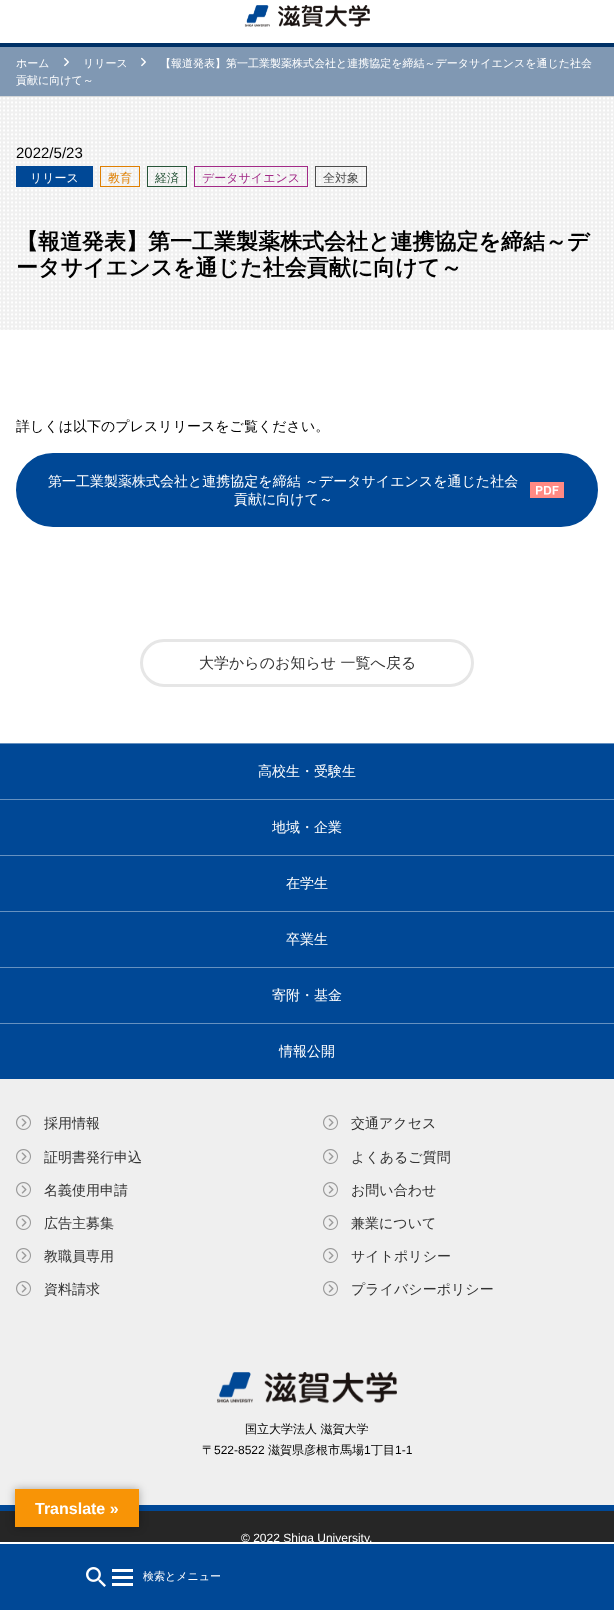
<!DOCTYPE html>
<meta charset="utf-8">
<style>body { margin: 0 } canvas { display: block }</style>
<canvas id="canvas" width="614" height="1612"></canvas>
<img id="img1" src="images/1.png" hidden>
<img id="img2" src="images/2.png" hidden>
<img id="img3" src="images/3.png" hidden>
<img id="img4" src="images/4.png" hidden>
<img id="img5" src="images/5.png" hidden>
<img id="img6" src="images/6.png" hidden>
<img id="img7" src="images/7.png" hidden>
<script>
window.onload = function () {
    const canvas = document.getElementById('canvas');
    const context = canvas.getContext('2d');
    context.miterLimit = 4;
    context.fontKerning = 'normal';

    context.fillStyle = 'rgb(255, 255, 255)';
    context.fillRect(0, 0, 614, 1612);
    context.fillStyle = 'rgb(0, 49, 102)';
    context.fillRect(0, 43, 614, 4);
    context.drawImage(document.getElementById('img1'), 244, 5, 126, 22);
    context.fillStyle = 'rgb(128, 152, 179)';
    context.fillRect(0, 47, 614, 49);
    context.fillStyle = 'rgb(212, 215, 217)';
    context.fillRect(0, 96, 614, 1);
    context.drawImage(document.getElementById('img2'), 64, 57, 5, 10);
    context.drawImage(document.getElementById('img2'), 141, 57, 5, 10);
    context.drawImage(document.getElementById('img3'), 0, 97, 614, 233);
    context.fillStyle = 'rgb(0, 72, 150)';
    context.fillRect(16, 166, 77, 21);
    context.strokeStyle = 'rgb(223, 127, 1)';
    context.strokeRect(100.5, 166.5, 39, 20);
    context.strokeStyle = 'rgb(39, 84, 56)';
    context.strokeRect(147.5, 166.5, 39, 20);
    context.strokeStyle = 'rgb(162, 42, 135)';
    context.strokeRect(194.5, 166.5, 113, 20);
    context.strokeStyle = 'rgb(77, 77, 77)';
    context.strokeRect(315.5, 166.5, 51, 20);
    context.beginPath();
    context.roundRect(17.5, 454.5, 579, 71, 35.5);
    context.fill();
    context.strokeStyle = 'rgb(0, 72, 150)';
    context.lineWidth = 3;
    context.stroke();
    context.drawImage(document.getElementById('img4'), 530, 482, 34, 16);
    context.beginPath();
    context.roundRect(141.5, 640.5, 331, 45, 22.5);
    context.strokeStyle = 'rgb(230, 230, 230)';
    context.stroke();
    context.fillStyle = 'rgb(239, 239, 239)';
    context.fillRect(0, 1079, 614, 426);
    context.fillStyle = 'rgb(0, 72, 150)';
    context.fillRect(0, 744, 614, 335);
    context.fillStyle = 'rgb(102, 145, 192)';
    context.fillRect(0, 743, 614, 1);
    context.fillRect(0, 799, 614, 1);
    context.fillRect(0, 855, 614, 1);
    context.fillRect(0, 911, 614, 1);
    context.fillRect(0, 967, 614, 1);
    context.fillRect(0, 1023, 614, 1);
    context.drawImage(document.getElementById('img5'), 16, 1115, 15, 15);
    context.drawImage(document.getElementById('img5'), 16, 1149, 15, 15);
    context.drawImage(document.getElementById('img5'), 16, 1182, 15, 15);
    context.drawImage(document.getElementById('img5'), 16, 1215, 15, 15);
    context.drawImage(document.getElementById('img5'), 16, 1248, 15, 15);
    context.drawImage(document.getElementById('img5'), 16, 1281, 15, 15);
    context.drawImage(document.getElementById('img5'), 323, 1115, 15, 15);
    context.drawImage(document.getElementById('img5'), 323, 1149, 15, 15);
    context.drawImage(document.getElementById('img5'), 323, 1182, 15, 15);
    context.drawImage(document.getElementById('img5'), 323, 1215, 15, 15);
    context.drawImage(document.getElementById('img5'), 323, 1248, 15, 15);
    context.drawImage(document.getElementById('img5'), 323, 1281, 15, 15);
    context.drawImage(document.getElementById('img6'), 217, 1372, 180, 32);
    context.fillStyle = 'rgb(38, 38, 38)';
    context.fillRect(0, 1511, 614, 31);
    context.fillStyle = 'rgb(0, 72, 150)';
    context.fillRect(0, 1505, 614, 6);
    context.fillStyle = 'rgba(0, 0, 0, 0.3)';
    context.filter = 'blur(4.5px)';
    context.beginPath();
    context.rect(15, 1489, 124, 38);
    context.fill();
    context.filter = 'none';
    context.fillStyle = 'rgb(248, 148, 6)';
    context.fillRect(15, 1489, 124, 38);
    context.font = '500 11px WenQuanYi Zen Hei';
    context.fillStyle = 'rgb(255, 255, 255)';
    context.fillText('ホーム', 16, 67);
    context.fillText('リリース', 83, 67);
    context.fillText('【報道発表】第一工業製薬株式会社と連携協定を締結～データサイエンスを通じた社会', 160, 67);
    context.fillText('貢献に向けて～', 16, 84);
    context.font = '15px Liberation Sans';
    context.fillStyle = 'rgb(0, 0, 0)';
    context.fillText('2022/5/23', 16, 158);
    context.font = '500 12px WenQuanYi Zen Hei';
    context.fillStyle = 'rgb(255, 255, 255)';
    context.fillText('リリース', 30, 182);
    context.fillStyle = 'rgb(223, 127, 1)';
    context.fillText('教育', 108, 182);
    context.fillStyle = 'rgb(39, 84, 56)';
    context.fillText('経済', 155, 182);
    context.fillStyle = 'rgb(162, 42, 135)';
    context.fillText('データサイエンス', 202, 182);
    context.fillStyle = 'rgb(77, 77, 77)';
    context.fillText('全対象', 323, 182);
    context.font = 'bold 22px WenQuanYi Zen Hei';
    context.fillStyle = 'rgb(0, 0, 0)';
    context.fillText('【報道発表】第一工業製薬株式会社と連携協定を締結～デ', 16, 249);
    context.fillText('ータサイエンスを通じた社会貢献に向けて～', 16, 275);
    context.font = '500 14px WenQuanYi Zen Hei';
    context.fillText('詳しくは以下のプレスリリースをご覧ください。', 16, 431);
    context.fillStyle = 'rgb(255, 255, 255)';
    context.fillText('第一工業製薬株式会社と連携協定を締結 ～データサイエンスを通じた社会', 48, 486);
    context.fillText('貢献に向けて～', 234, 504);
    context.font = '500 15px WenQuanYi Zen Hei';
    context.fillStyle = 'rgb(51, 51, 51)';
    context.fillText('大学からのお知らせ 一覧へ戻る', 199, 668);
    context.font = '500 14px WenQuanYi Zen Hei';
    context.fillStyle = 'rgb(255, 255, 255)';
    context.fillText('高校生・受験生', 258, 776);
    context.fillText('地域・企業', 272, 832);
    context.fillText('在学生', 286, 888);
    context.fillText('卒業生', 286, 944);
    context.fillText('寄附・基⾦', 272, 1000);
    context.fillText('情報公開', 279, 1056);
    context.fillStyle = 'rgb(51, 51, 51)';
    context.fillText('採用情報', 44, 1128);
    context.fillText('証明書発⾏申込', 44, 1162);
    context.fillText('名義使⽤申請', 44, 1195);
    context.fillText('広告主募集', 44, 1228);
    context.fillText('教職員専⽤', 44, 1261);
    context.fillText('資料請求', 44, 1294);
    context.fillText('交通アクセス', 351, 1128);
    context.fillText('よくあるご質問', 351, 1162);
    context.fillText('お問い合わせ', 351, 1195);
    context.fillText('兼業について', 351, 1228);
    context.fillText('サイトポリシー', 351, 1261);
    context.fillText('プライバシーポリシー', 351, 1294);
    context.font = '500 12px WenQuanYi Zen Hei';
    context.fillStyle = 'rgb(0, 0, 0)';
    context.fillText('国⽴⼤学法⼈ 滋賀⼤学', 245, 1433);
    context.fillText('〒', 202, 1454);
    context.font = '12px Liberation Sans';
    context.fillText('522-8522', 214, 1454);
    context.font = '500 12px WenQuanYi Zen Hei';
    context.fillText('滋賀県彦根市⾺場', 268, 1454);
    context.font = '12px Liberation Sans';
    context.fillText('1', 364, 1454);
    context.font = '500 12px WenQuanYi Zen Hei';
    context.fillText('丁⽬', 371, 1454);
    context.font = '12px Liberation Sans';
    context.fillText('1-1', 395, 1454);
    context.fillStyle = 'rgb(255, 255, 255)';
    context.fillText('© 2022 Shiga University.', 241, 1542);
    context.fillStyle = 'rgb(0, 72, 150)';
    context.fillRect(0, 1544, 614, 66);
    context.drawImage(document.getElementById('img7'), 86, 1567, 47, 20);
    context.font = '500 11px WenQuanYi Zen Hei';
    context.fillStyle = 'rgb(255, 255, 255)';
    context.fillText('検索とメニュー', 143, 1580);
    context.font = 'bold 16px Liberation Sans';
    context.fillText('Translate »', 35, 1514);
};
</script>
